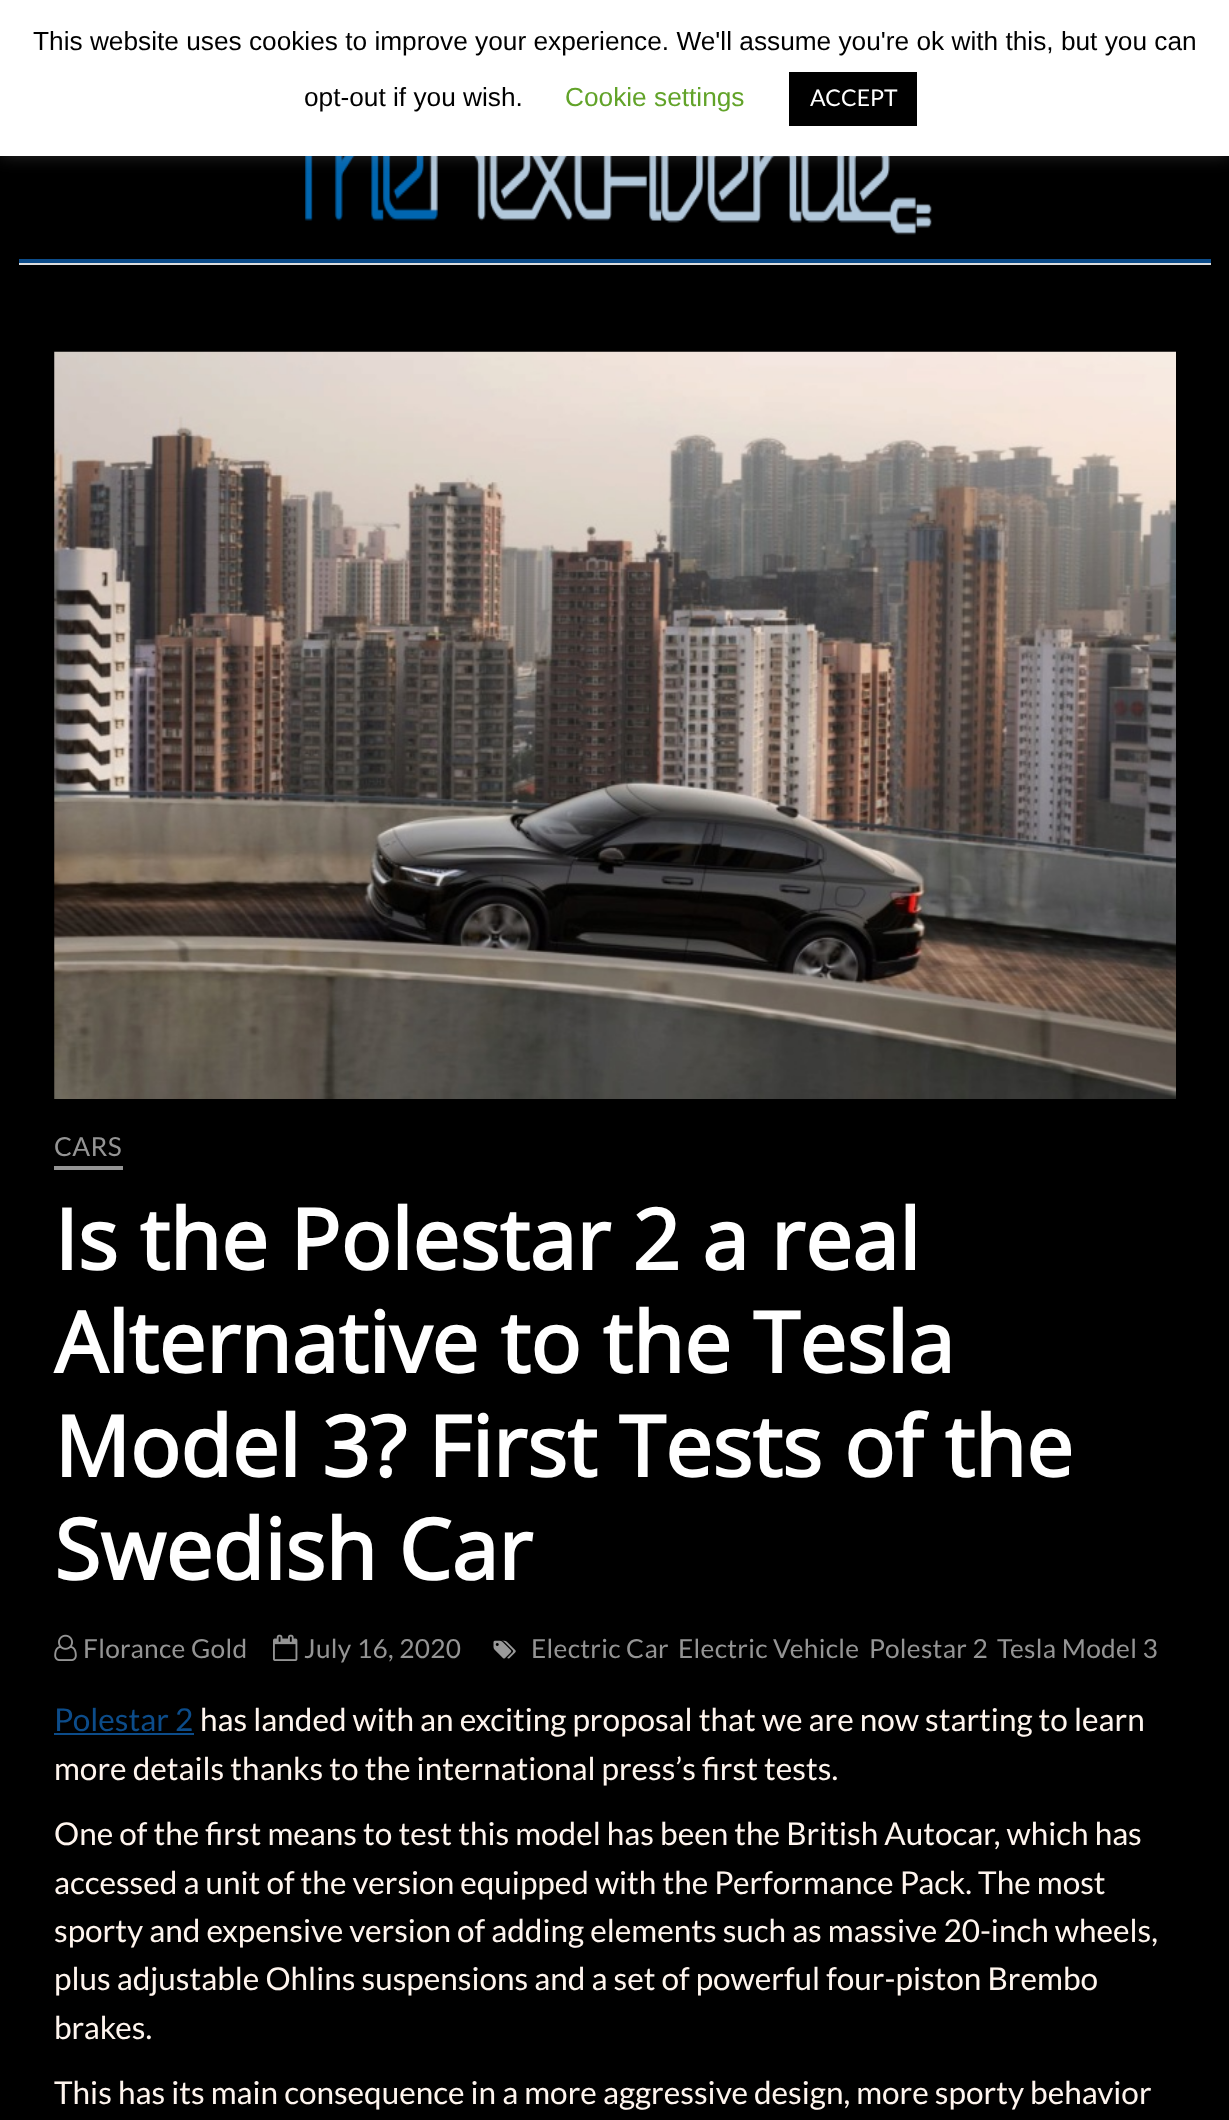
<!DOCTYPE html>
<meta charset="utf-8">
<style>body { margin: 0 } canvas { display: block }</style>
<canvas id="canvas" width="1229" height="2120"></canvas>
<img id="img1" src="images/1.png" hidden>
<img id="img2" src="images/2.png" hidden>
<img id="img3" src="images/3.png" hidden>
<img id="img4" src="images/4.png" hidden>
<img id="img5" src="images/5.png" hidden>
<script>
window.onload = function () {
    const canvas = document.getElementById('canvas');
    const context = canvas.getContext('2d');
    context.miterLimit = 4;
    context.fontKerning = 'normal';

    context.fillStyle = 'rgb(0, 0, 0)';
    context.fillRect(0, 0, 1229, 2120);
    context.drawImage(document.getElementById('img1'), 305, 156, 627, 79);
    context.fillStyle = 'rgba(172, 171, 171, 0.3)';
    context.filter = 'blur(9px)';
    context.beginPath();
    context.rect(0, -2, 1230, 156);
    context.fill();
    context.filter = 'none';
    context.fillStyle = 'rgb(255, 255, 255)';
    context.fillRect(0, 0, 1229, 156);
    context.fillStyle = 'rgb(0, 0, 0)';
    context.fillRect(789, 72, 128, 54);
    context.fillStyle = 'rgb(12, 76, 138)';
    context.fillRect(19, 259, 1192, 4);
    context.fillStyle = 'rgb(221, 221, 221)';
    context.fillRect(19, 263, 1192, 2);
    context.drawImage(document.getElementById('img2'), 54, 351, 1122, 748);
    context.fillStyle = 'rgb(148, 148, 148)';
    context.fillRect(54, 1166, 69, 4);
    context.drawImage(document.getElementById('img3'), 54, 1634, 23, 27);
    context.drawImage(document.getElementById('img4'), 273, 1634, 25, 27);
    context.drawImage(document.getElementById('img5'), 493, 1640, 23, 19);
    context.fillStyle = 'rgb(12, 76, 138)';
    context.fillRect(54, 1733, 140, 2);
    context.font = '26.25px Liberation Sans';
    context.fillStyle = 'rgb(0, 0, 0)';
    context.fillText('This website uses cookies to improve your experience. We\'ll assume you\'re ok with this, but you can', 33, 50);
    context.fillText('opt-out if you wish.', 304, 106);
    context.fillStyle = 'rgb(98, 163, 41)';
    context.fillText('Cookie settings', 565, 106);
    context.font = '23px Lato';
    context.fillStyle = 'rgb(255, 255, 255)';
    context.fillText('ACCEPT', 810, 106);
    context.letterSpacing = '0.3px';
    context.font = '26.25px Lato';
    context.fillStyle = 'rgb(148, 148, 148)';
    context.fillText('CARS', 54, 1156);
    context.letterSpacing = '0px';
    context.font = 'bold 84px Open Sans';
    context.fillStyle = 'rgb(255, 255, 255)';
    context.fillText('Is the Polestar 2 a real', 54, 1270);
    context.fillText('Alternative to the Tesla', 54, 1373);
    context.fillText('Model 3? First Tests of the', 54, 1477);
    context.fillText('Swedish Car', 54, 1580);
    context.letterSpacing = '0.3px';
    context.font = '26.25px Lato';
    context.fillStyle = 'rgb(148, 148, 148)';
    context.fillText('Florance Gold', 83, 1658);
    context.fillText('July 16, 2020', 304, 1658);
    context.fillText('Electric Car', 531, 1658);
    context.fillText('Electric Vehicle', 678, 1658);
    context.fillText('Polestar 2', 869, 1658);
    context.fillText('Tesla Model 3', 997, 1658);
    context.letterSpacing = '0px';
    context.font = '31.5px Lato';
    context.fillStyle = 'rgb(12, 76, 138)';
    context.fillText('Polestar 2', 54, 1731);
    context.fillStyle = 'rgb(255, 245, 238)';
    context.fillText('has landed with an exciting proposal that we are now starting to learn', 200, 1731);
    context.fillText('more details thanks to the international press’s first tests.', 54, 1780);
    context.fillText('One of the first means to test this model has been the British Autocar, which has', 54, 1845);
    context.fillText('accessed a unit of the version equipped with the Performance Pack. The most', 54, 1894);
    context.fillText('sporty and expensive version of adding elements such as massive 20-inch wheels,', 54, 1942);
    context.fillText('plus adjustable Ohlins suspensions and a set of powerful four-piston Brembo', 54, 1990);
    context.fillText('brakes.', 54, 2039);
    context.fillText('This has its main consequence in a more aggressive design, more sporty behavior', 54, 2104);
};
</script>
